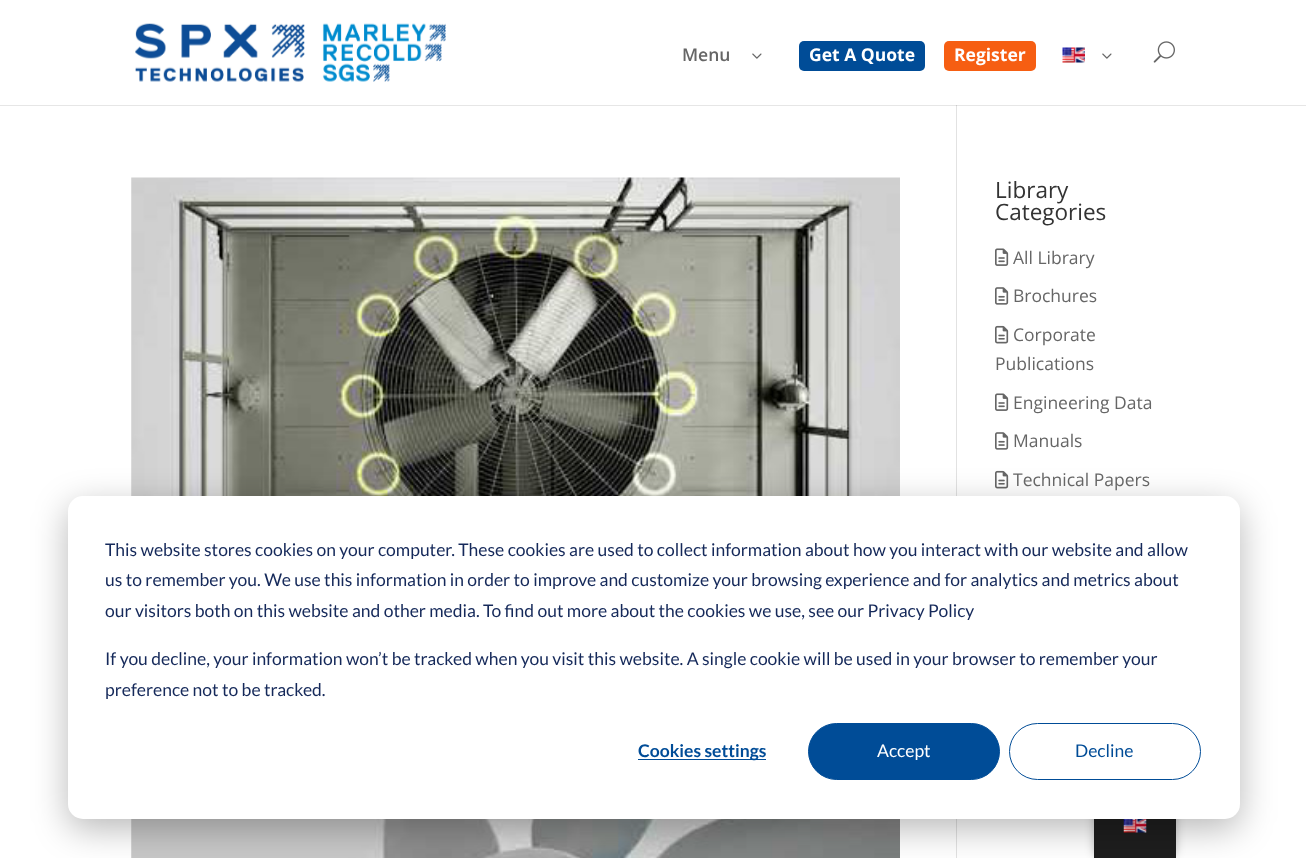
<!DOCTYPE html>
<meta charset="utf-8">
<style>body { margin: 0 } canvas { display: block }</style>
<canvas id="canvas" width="1306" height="858"></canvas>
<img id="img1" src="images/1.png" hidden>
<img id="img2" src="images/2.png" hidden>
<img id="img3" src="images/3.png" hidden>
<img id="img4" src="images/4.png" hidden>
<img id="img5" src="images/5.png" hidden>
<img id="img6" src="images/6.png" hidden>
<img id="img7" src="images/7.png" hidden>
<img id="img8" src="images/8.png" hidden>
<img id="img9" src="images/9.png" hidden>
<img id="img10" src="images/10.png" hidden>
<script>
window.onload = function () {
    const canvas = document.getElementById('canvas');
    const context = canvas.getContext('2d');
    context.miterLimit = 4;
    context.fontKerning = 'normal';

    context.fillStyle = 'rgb(255, 255, 255)';
    context.fillRect(0, 0, 1306, 858);
    context.fillStyle = 'rgb(230, 230, 230)';
    context.fillRect(0, 105, 1306, 1);
    context.drawImage(document.getElementById('img1'), 135, 23, 311, 59);
    context.drawImage(document.getElementById('img2'), 752, 53, 10, 6);
    context.fillStyle = 'rgb(0, 76, 151)';
    context.beginPath();
    context.roundRect(799, 41, 126, 30, 5);
    context.fill();
    context.fillStyle = 'rgb(246, 94, 18)';
    context.beginPath();
    context.roundRect(944, 41, 92, 30, 5);
    context.fill();
    context.drawImage(document.getElementById('img3'), 1062, 47, 23, 16);
    context.drawImage(document.getElementById('img2'), 1102, 53, 10, 6);
    context.drawImage(document.getElementById('img4'), 1153, 41, 22, 22);
    context.fillStyle = 'rgb(226, 226, 226)';
    context.fillRect(956, 105, 1, 753);
    context.fillStyle = 'rgb(203, 203, 203)';
    context.fillRect(956, 105, 1, 1);
    context.drawImage(document.getElementById('img5'), 131, 177, 769, 319);
    context.drawImage(document.getElementById('img6'), 131, 819, 769, 39);
    context.drawImage(document.getElementById('img7'), 995, 248, 14, 18);
    context.drawImage(document.getElementById('img8'), 995, 287, 14, 18);
    context.drawImage(document.getElementById('img9'), 995, 325, 14, 19);
    context.drawImage(document.getElementById('img7'), 995, 393, 14, 18);
    context.drawImage(document.getElementById('img8'), 995, 432, 14, 18);
    context.drawImage(document.getElementById('img9'), 995, 470, 14, 19);
    context.fillStyle = 'rgba(0, 0, 0, 0.25)';
    context.filter = 'blur(5px)';
    context.beginPath();
    context.roundRect(1094, 786, 82, 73, 10);
    context.fill();
    context.filter = 'none';
    context.fillStyle = 'rgb(30, 30, 30)';
    context.fillRect(1094, 819, 82, 39);
    context.drawImage(document.getElementById('img10'), 1123, 819, 24, 14);
    context.fillStyle = 'rgba(0, 0, 0, 0.28)';
    context.filter = 'blur(17.5px)';
    context.beginPath();
    context.roundRect(68, 506, 1172, 323, 15);
    context.fill();
    context.filter = 'none';
    context.fillStyle = 'rgb(255, 255, 255)';
    context.beginPath();
    context.roundRect(68, 496, 1172, 323, 15);
    context.fill();
    context.fillStyle = 'rgb(0, 76, 151)';
    context.fillRect(638, 759, 128, 1);
    context.beginPath();
    context.roundRect(808.5, 723.5, 191, 56, 28);
    context.fill();
    context.strokeStyle = 'rgb(0, 76, 151)';
    context.stroke();
    context.beginPath();
    context.roundRect(1009.5, 723.5, 191, 56, 28);
    context.stroke();
    context.font = '600 17.5px Open Sans';
    context.fillStyle = 'rgb(102, 102, 102)';
    context.fillText('Menu', 682, 61);
    context.font = 'bold 17.5px Open Sans';
    context.fillStyle = 'rgb(255, 255, 255)';
    context.fillText('Get A Quote', 809, 61);
    context.fillText('Register', 954, 61);
    context.font = '22.5px Open Sans';
    context.fillStyle = 'rgb(51, 51, 51)';
    context.fillText('Library', 995, 198);
    context.fillText('Categories', 995, 220);
    context.font = '17.5px Open Sans';
    context.fillStyle = 'rgb(102, 102, 102)';
    context.fillText('All Library', 1013, 264);
    context.fillText('Brochures', 1013, 302);
    context.fillText('Corporate', 1013, 341);
    context.fillText('Publications', 995, 370);
    context.fillText('Engineering Data', 1013, 409);
    context.fillText('Manuals', 1013, 447);
    context.fillText('Technical Papers', 1013, 486);
    context.font = '17.5px Lato';
    context.fillStyle = 'rgb(21, 41, 90)';
    context.fillText('This website stores cookies on your computer. These cookies are used to collect information about how you interact with our website and allow', 105, 556);
    context.fillText('us to remember you. We use this information in order to improve and customize your browsing experience and for analytics and metrics about', 105, 586);
    context.fillText('our visitors both on this website and other media. To find out more about the cookies we use, see our Privacy Policy', 105, 617);
    context.fillText('If you decline, your information won’t be tracked when you visit this website. A single cookie will be used in your browser to remember your', 105, 665);
    context.fillText('preference not to be tracked.', 105, 696);
    context.font = 'bold 17.5px Lato';
    context.fillStyle = 'rgb(0, 76, 151)';
    context.fillText('Cookies settings', 638, 757);
    context.font = '17.5px Lato';
    context.fillStyle = 'rgb(255, 255, 255)';
    context.fillText('Accept', 877, 757);
    context.fillStyle = 'rgb(0, 76, 151)';
    context.fillText('Decline', 1075, 757);
};
</script>
